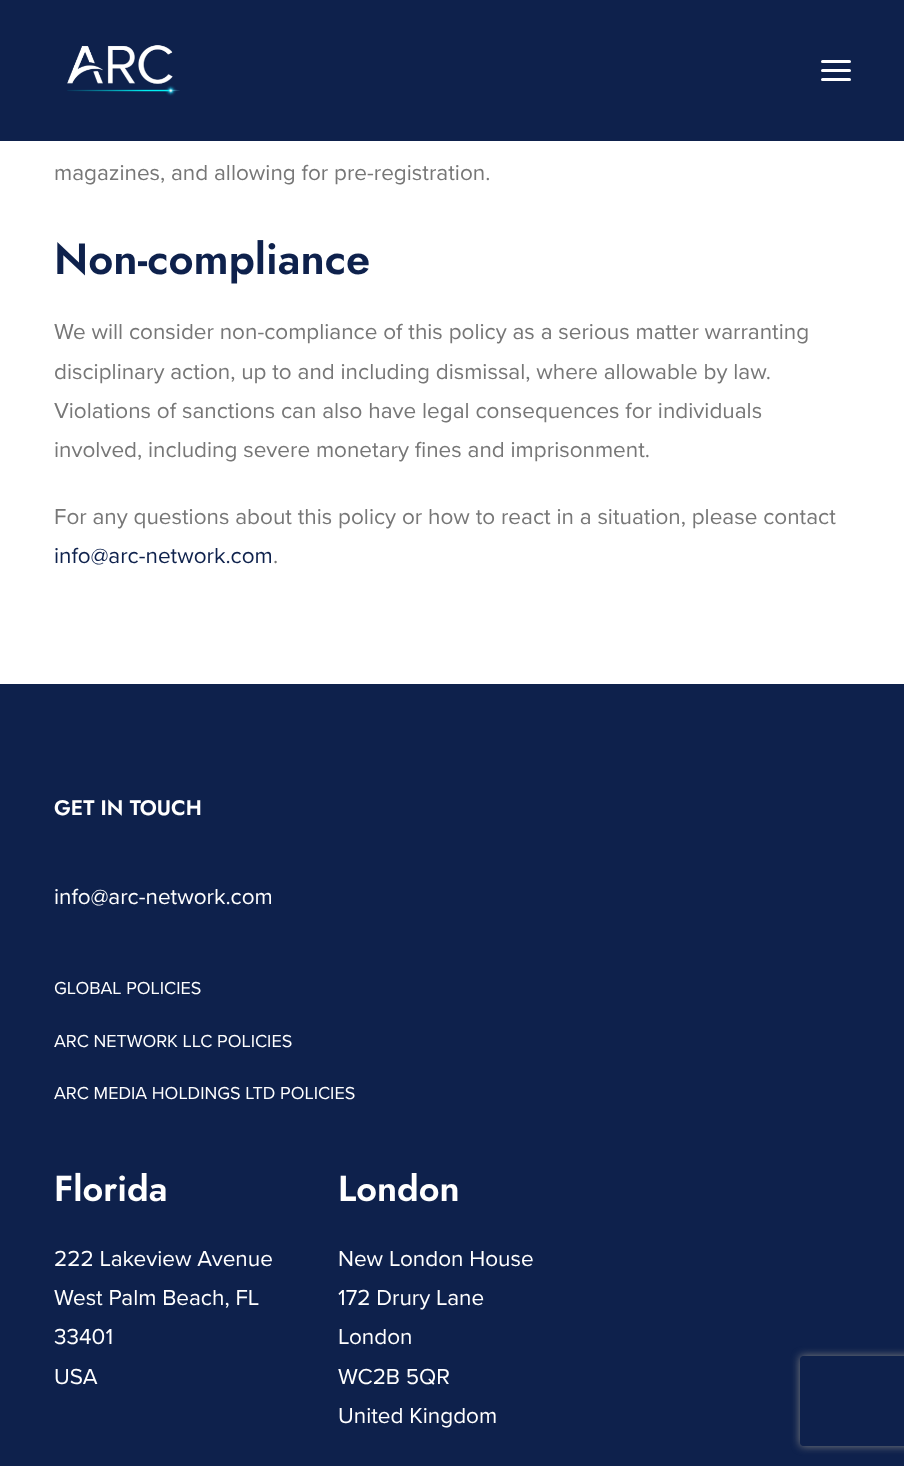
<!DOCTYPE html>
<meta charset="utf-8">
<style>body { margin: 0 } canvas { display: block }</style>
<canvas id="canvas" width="904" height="1466"></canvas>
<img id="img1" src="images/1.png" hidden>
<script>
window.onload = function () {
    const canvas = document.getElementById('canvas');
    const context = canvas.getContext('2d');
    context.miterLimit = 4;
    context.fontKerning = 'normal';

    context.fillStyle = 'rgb(255, 255, 255)';
    context.fillRect(0, 0, 904, 1466);
    context.fillStyle = 'rgb(14, 33, 76)';
    context.fillRect(0, 0, 904, 141);
    context.drawImage(document.getElementById('img1'), 67, 45, 113, 51);
    context.fillStyle = 'rgb(255, 255, 255)';
    context.beginPath();
    context.roundRect(821, 69, 30, 3, 1.5);
    context.fill();
    context.beginPath();
    context.roundRect(821, 60, 30, 3, 1.5);
    context.fill();
    context.beginPath();
    context.roundRect(821, 78, 30, 3, 1.5);
    context.fill();
    context.fillStyle = 'rgb(14, 33, 76)';
    context.fillRect(0, 684, 904, 782);
    context.save();
    context.beginPath();
    context.moveTo(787, 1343);
    context.lineTo(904, 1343);
    context.lineTo(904, 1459);
    context.lineTo(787, 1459);
    context.closePath();
    context.moveTo(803, 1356);
    context.lineTo(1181, 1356);
    context.bezierCurveTo(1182.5, 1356, 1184, 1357.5, 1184, 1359);
    context.lineTo(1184, 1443);
    context.bezierCurveTo(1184, 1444.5, 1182.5, 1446, 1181, 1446);
    context.lineTo(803, 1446);
    context.bezierCurveTo(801.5, 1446, 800, 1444.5, 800, 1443);
    context.lineTo(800, 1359);
    context.bezierCurveTo(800, 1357.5, 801.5, 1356, 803, 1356);
    context.closePath();
    context.clip('evenodd');
    context.fillStyle = 'rgb(128, 128, 128)';
    context.filter = 'blur(4px)';
    context.beginPath();
    context.roundRect(800, 1356, 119, 90, 3);
    context.fill();
    context.filter = 'none';
    context.restore();
    context.font = '22.5px Proxima Nova';
    context.fillStyle = 'rgb(119, 119, 119)';
    context.fillText('magazines, and allowing for pre-registration.', 54, 180);
    context.font = '600 43.5px Jost';
    context.fillStyle = 'rgb(14, 33, 76)';
    context.fillText('Non-compliance', 54, 274);
    context.font = '22.5px Proxima Nova';
    context.fillStyle = 'rgb(119, 119, 119)';
    context.fillText('We will consider non-compliance of this policy as a serious matter warranting', 54, 339);
    context.fillText('disciplinary action, up to and including dismissal, where allowable by law.', 54, 379);
    context.fillText('Violations of sanctions can also have legal consequences for individuals', 54, 418);
    context.fillText('involved, including severe monetary fines and imprisonment.', 54, 457);
    context.fillText('For any questions about this policy or how to react in a situation, please contact', 54, 524);
    context.fillStyle = 'rgb(14, 33, 76)';
    context.fillText('info@arc-network.com', 54, 563);
    context.fillStyle = 'rgb(119, 119, 119)';
    context.fillText('.', 273, 563);
    context.font = '600 21px Jost';
    context.fillStyle = 'rgb(255, 255, 255)';
    context.fillText('GET IN TOUCH', 54, 815);
    context.font = '22.5px Proxima Nova';
    context.fillText('info@arc-network.com', 54, 904);
    context.font = '18px Proxima Nova';
    context.fillText('GLOBAL POLICIES', 54, 994);
    context.fillText('ARC NETWORK LLC POLICIES', 54, 1047);
    context.fillText('ARC MEDIA HOLDINGS LTD POLICIES', 54, 1099);
    context.font = '600 36px Jost';
    context.fillText('Florida', 54, 1201);
    context.font = '22.5px Proxima Nova';
    context.fillText('222 Lakeview Avenue', 54, 1266);
    context.fillText('West Palm Beach, FL', 54, 1305);
    context.fillText('33401', 54, 1344);
    context.fillText('USA', 54, 1384);
    context.font = '600 36px Jost';
    context.fillText('London', 338, 1201);
    context.font = '22.5px Proxima Nova';
    context.fillText('New London House', 338, 1266);
    context.fillText('172 Drury Lane', 338, 1305);
    context.fillText('London', 338, 1344);
    context.fillText('WC2B 5QR', 338, 1384);
    context.fillText('United Kingdom', 338, 1423);
};
</script>
